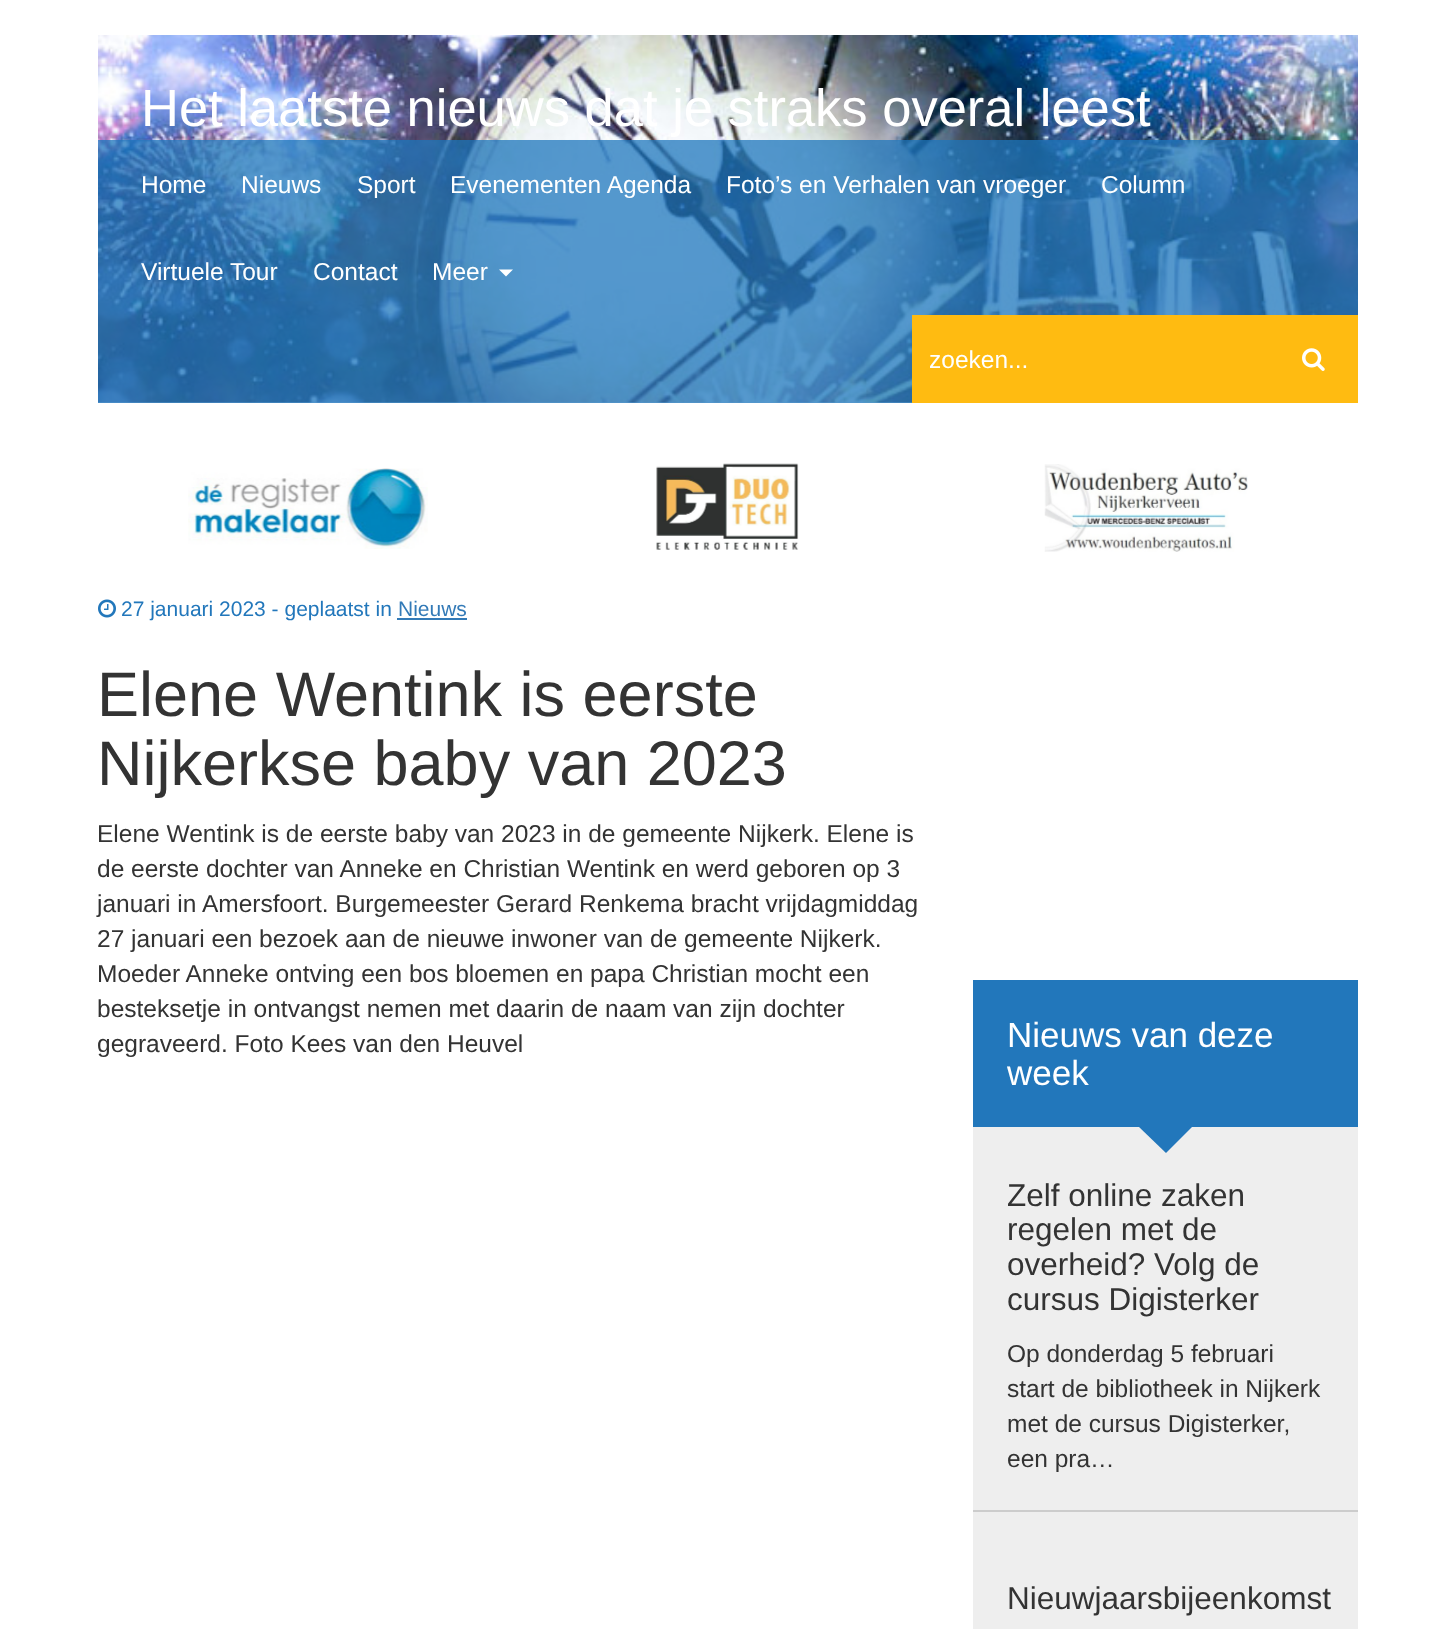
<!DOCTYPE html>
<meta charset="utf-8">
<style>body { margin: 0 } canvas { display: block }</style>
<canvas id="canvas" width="1454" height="1629"></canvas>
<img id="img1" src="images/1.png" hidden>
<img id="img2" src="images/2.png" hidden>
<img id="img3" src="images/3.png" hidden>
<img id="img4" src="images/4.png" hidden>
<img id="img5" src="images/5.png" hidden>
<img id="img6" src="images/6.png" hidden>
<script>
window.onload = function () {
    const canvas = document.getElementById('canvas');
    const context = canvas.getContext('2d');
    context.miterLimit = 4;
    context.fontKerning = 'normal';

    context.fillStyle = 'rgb(255, 255, 255)';
    context.fillRect(0, 0, 1454, 1629);
    context.drawImage(document.getElementById('img1'), 98, 35, 1260, 368);
    context.fillStyle = 'rgba(28, 117, 188, 0.75)';
    context.fillRect(98, 140, 1260, 263);
    context.fillStyle = 'rgb(255, 255, 255)';
    context.beginPath();
    context.moveTo(499, 269.5);
    context.lineTo(513, 269.5);
    context.lineTo(506, 276.5);
    context.closePath();
    context.fill();
    context.fillStyle = 'rgb(255, 187, 17)';
    context.fillRect(912, 315, 446, 88);
    context.drawImage(document.getElementById('img2'), 1302, 348, 23, 23);
    context.drawImage(document.getElementById('img3'), 188, 468, 240, 81);
    context.drawImage(document.getElementById('img4'), 656, 463, 143, 87);
    context.drawImage(document.getElementById('img5'), 1044, 464, 204, 88);
    context.drawImage(document.getElementById('img6'), 98, 599, 18, 19);
    context.fillStyle = 'rgb(51, 122, 183)';
    context.fillRect(397, 618, 70, 2);
    context.fillStyle = 'rgb(238, 238, 238)';
    context.fillRect(973, 1127, 385, 502);
    context.fillStyle = 'rgb(34, 119, 187)';
    context.fillRect(973, 980, 385, 147);
    context.beginPath();
    context.moveTo(1139, 1127);
    context.lineTo(1192, 1127);
    context.lineTo(1166, 1153);
    context.closePath();
    context.fill();
    context.fillStyle = 'rgb(204, 204, 204)';
    context.fillRect(973, 1510, 385, 2);
    context.font = '52.5px Liberation Sans';
    context.fillStyle = 'rgb(255, 255, 255)';
    context.fillText('Het laatste nieuws dat je straks overal leest', 141, 126);
    context.font = '24.5px Liberation Sans';
    context.fillText('Home', 141, 193);
    context.fillText('Nieuws', 241, 193);
    context.fillText('Sport', 357, 193);
    context.fillText('Evenementen Agenda', 450, 193);
    context.fillText('Foto’s en Verhalen van vroeger', 726, 193);
    context.fillText('Column', 1101, 193);
    context.fillText('Virtuele Tour', 141, 280);
    context.fillText('Contact', 313, 280);
    context.fillText('Meer', 432, 280);
    context.fillText('zoeken...', 929, 368);
    context.font = '21px Liberation Sans';
    context.fillStyle = 'rgb(34, 119, 187)';
    context.fillText('27 januari 2023 - geplaatst in', 121, 616);
    context.fillStyle = 'rgb(51, 122, 183)';
    context.fillText('Nieuws', 398, 616);
    context.font = '63px Liberation Sans';
    context.fillStyle = 'rgb(51, 51, 51)';
    context.fillText('Elene Wentink is eerste', 97, 716);
    context.fillText('Nijkerkse baby van 2023', 97, 785);
    context.font = '24.5px Liberation Sans';
    context.fillText('Elene Wentink is de eerste baby van 2023 in de gemeente Nijkerk. Elene is', 97, 842);
    context.fillText('de eerste dochter van Anneke en Christian Wentink en werd geboren op 3', 97, 877);
    context.fillText('januari in Amersfoort. Burgemeester Gerard Renkema bracht vrijdagmiddag', 97, 912);
    context.fillText('27 januari een bezoek aan de nieuwe inwoner van de gemeente Nijkerk.', 97, 947);
    context.fillText('Moeder Anneke ontving een bos bloemen en papa Christian mocht een', 97, 982);
    context.fillText('besteksetje in ontvangst nemen met daarin de naam van zijn dochter', 97, 1017);
    context.fillText('gegraveerd. Foto Kees van den Heuvel', 97, 1052);
    context.font = '35px Liberation Sans';
    context.fillStyle = 'rgb(255, 255, 255)';
    context.fillText('Nieuws van deze', 1007, 1047);
    context.fillText('week', 1007, 1085);
    context.font = '31.5px Liberation Sans';
    context.fillStyle = 'rgb(51, 51, 51)';
    context.fillText('Zelf online zaken', 1007, 1206);
    context.fillText('regelen met de', 1007, 1240);
    context.fillText('overheid? Volg de', 1007, 1275);
    context.fillText('cursus Digisterker', 1007, 1310);
    context.font = '24.5px Liberation Sans';
    context.fillText('Op donderdag 5 februari', 1007, 1362);
    context.fillText('start de bibliotheek in Nijkerk', 1007, 1397);
    context.fillText('met de cursus Digisterker,', 1007, 1432);
    context.fillText('een pra…', 1007, 1467);
    context.font = '31.5px Liberation Sans';
    context.fillText('Nieuwjaarsbijeenkomst', 1007, 1609);
};
</script>
